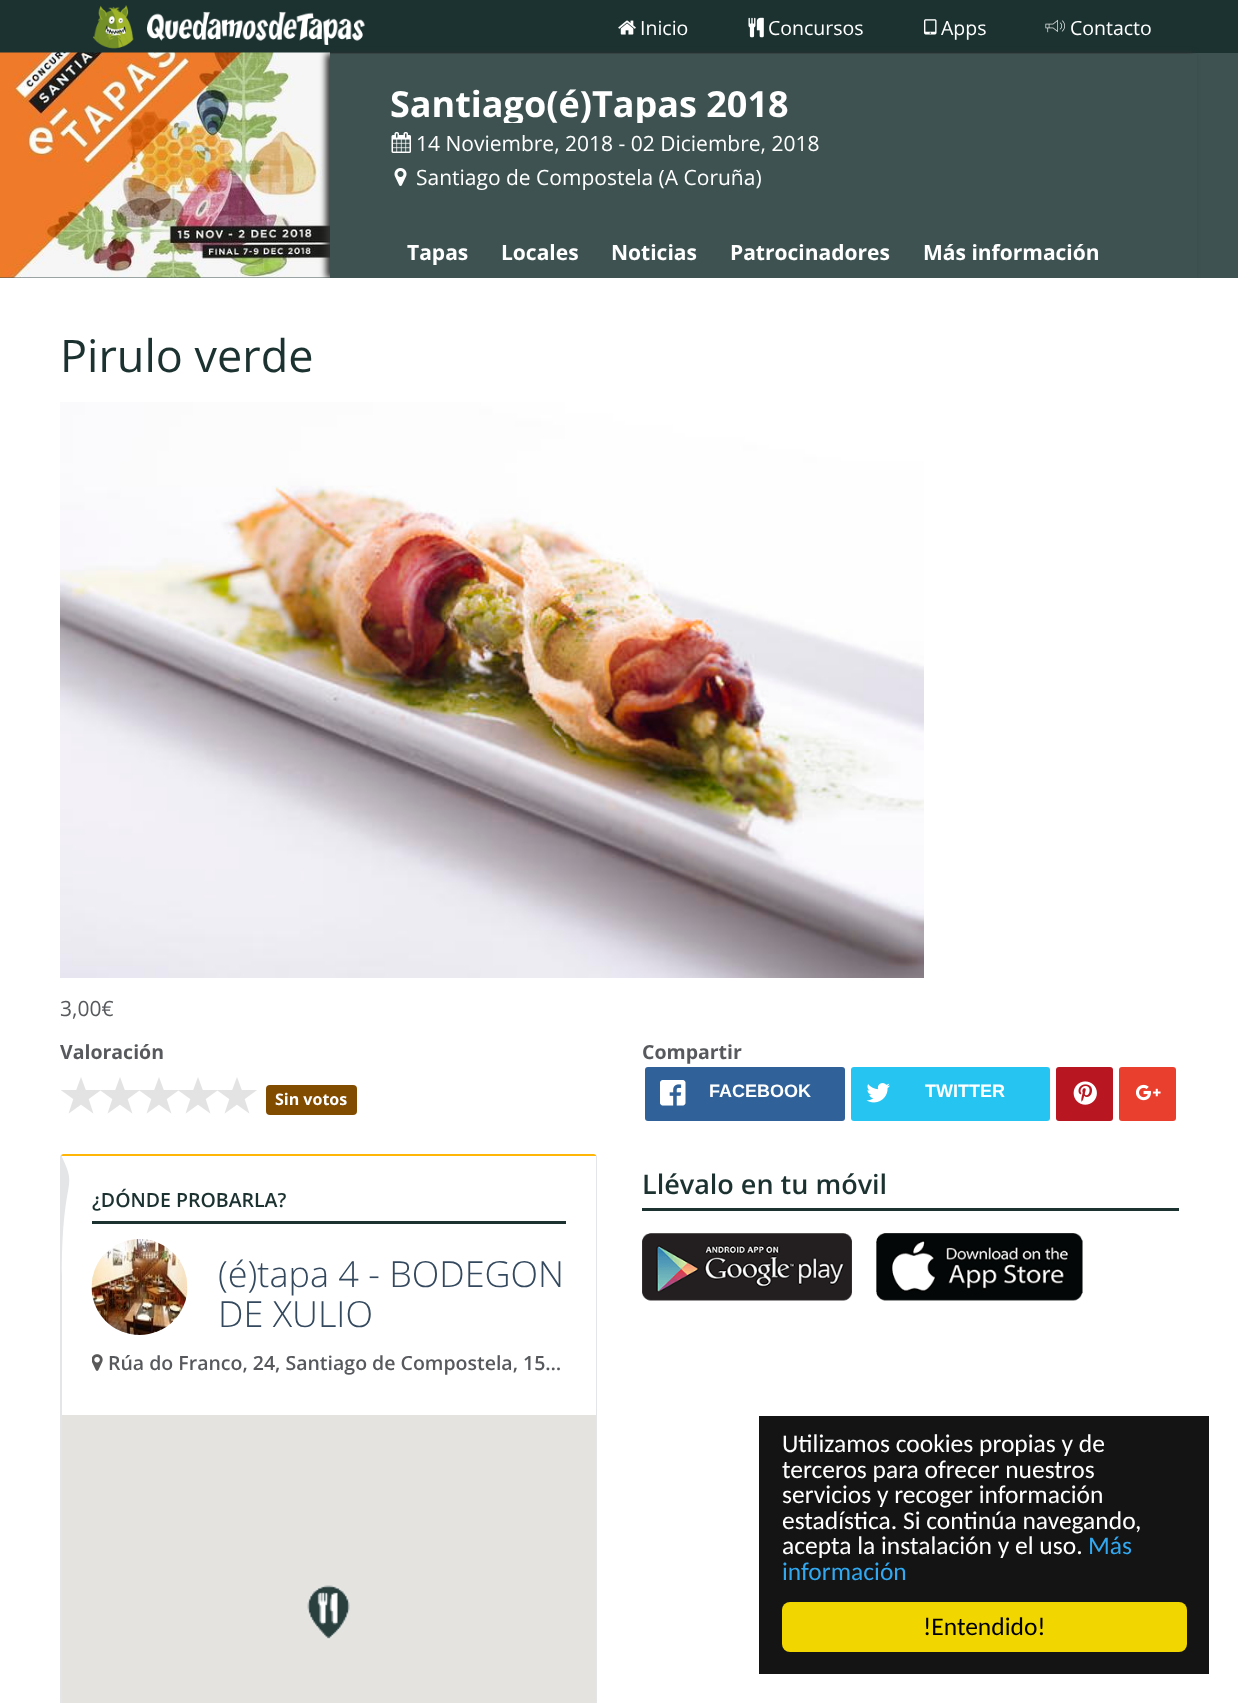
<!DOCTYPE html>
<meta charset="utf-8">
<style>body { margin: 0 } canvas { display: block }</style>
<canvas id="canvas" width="1238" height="1703"></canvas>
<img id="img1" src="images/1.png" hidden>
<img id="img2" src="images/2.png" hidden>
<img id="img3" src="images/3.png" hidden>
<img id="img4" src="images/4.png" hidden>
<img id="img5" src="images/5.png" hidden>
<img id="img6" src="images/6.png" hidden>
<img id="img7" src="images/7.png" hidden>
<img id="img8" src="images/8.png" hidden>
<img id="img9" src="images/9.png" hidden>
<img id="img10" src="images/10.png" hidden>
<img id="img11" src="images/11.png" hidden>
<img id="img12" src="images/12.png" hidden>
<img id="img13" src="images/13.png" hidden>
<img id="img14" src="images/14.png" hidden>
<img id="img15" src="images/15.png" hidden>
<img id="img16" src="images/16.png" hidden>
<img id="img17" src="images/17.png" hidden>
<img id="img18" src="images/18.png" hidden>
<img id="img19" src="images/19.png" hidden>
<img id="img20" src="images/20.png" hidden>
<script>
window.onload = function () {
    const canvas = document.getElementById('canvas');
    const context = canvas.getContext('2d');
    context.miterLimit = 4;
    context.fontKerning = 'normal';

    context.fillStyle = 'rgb(27, 50, 48)';
    context.fillRect(0, 0, 1238, 1703);
    context.drawImage(document.getElementById('img1'), 93, 5, 41, 44);
    context.drawImage(document.getElementById('img2'), 147, 11, 218, 34);
    context.drawImage(document.getElementById('img3'), 618, 20, 18, 15);
    context.drawImage(document.getElementById('img4'), 748, 17, 16, 21);
    context.drawImage(document.getElementById('img5'), 924, 19, 13, 16);
    context.drawImage(document.getElementById('img6'), 1045, 19, 20, 14);
    context.fillStyle = 'rgb(61, 82, 81)';
    context.fillRect(0, 53, 1238, 225);
    context.drawImage(document.getElementById('img7'), 0, 52, 330, 226);
    context.save();
    context.beginPath();
    context.moveTo(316, 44);
    context.lineTo(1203, 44);
    context.lineTo(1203, 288);
    context.lineTo(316, 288);
    context.closePath();
    context.moveTo(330, 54);
    context.lineTo(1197, 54);
    context.lineTo(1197, 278);
    context.lineTo(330, 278);
    context.closePath();
    context.clip('evenodd');
    context.fillStyle = 'rgb(51, 51, 51)';
    context.filter = 'blur(3px)';
    context.beginPath();
    context.rect(326, 54, 867, 224);
    context.fill();
    context.filter = 'none';
    context.restore();
    context.drawImage(document.getElementById('img8'), 391, 132, 20, 21);
    context.drawImage(document.getElementById('img9'), 394, 168, 13, 18);
    context.fillStyle = 'rgb(255, 255, 255)';
    context.fillRect(0, 278, 1238, 1425);
    context.drawImage(document.getElementById('img10'), 60, 402, 864, 576);
    context.drawImage(document.getElementById('img11'), 61, 1077, 196, 37);
    context.fillStyle = 'rgb(130, 76, 0)';
    context.beginPath();
    context.roundRect(266, 1085, 91, 30, 4);
    context.fill();
    context.fillStyle = 'rgb(48, 97, 153)';
    context.beginPath();
    context.roundRect(645, 1067, 200, 54, 3);
    context.fill();
    context.drawImage(document.getElementById('img12'), 660, 1080, 26, 26);
    context.fillStyle = 'rgb(38, 196, 241)';
    context.beginPath();
    context.roundRect(851, 1067, 199, 54, 3);
    context.fill();
    context.drawImage(document.getElementById('img13'), 866, 1083, 24, 20);
    context.fillStyle = 'rgb(184, 22, 33)';
    context.beginPath();
    context.roundRect(1056, 1067, 57, 54, 3);
    context.fill();
    context.drawImage(document.getElementById('img14'), 1073, 1081, 24, 24);
    context.fillStyle = 'rgb(233, 63, 46)';
    context.beginPath();
    context.roundRect(1119, 1067, 57, 54, 3);
    context.fill();
    context.drawImage(document.getElementById('img15'), 1136, 1084, 25, 17);
    context.fillStyle = 'rgb(27, 50, 48)';
    context.fillRect(642, 1208, 537, 3);
    context.drawImage(document.getElementById('img16'), 642, 1233, 210, 68);
    context.drawImage(document.getElementById('img17'), 876, 1233, 207, 68);
    context.fillStyle = 'rgb(255, 182, 6)';
    context.beginPath();
    context.moveTo(63, 1154);
    context.lineTo(61, 1155);
    context.lineTo(62, 1158);
    context.lineTo(62, 1156);
    context.lineTo(596, 1156);
    context.lineTo(596, 1155);
    context.lineTo(594, 1154);
    context.closePath();
    context.fill();
    context.fillStyle = 'rgb(228, 229, 231)';
    context.beginPath();
    context.moveTo(596, 1155);
    context.lineTo(597, 1156);
    context.lineTo(597, 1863);
    context.lineTo(596, 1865);
    context.lineTo(595, 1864);
    context.lineTo(596, 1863);
    context.lineTo(596, 1156);
    context.closePath();
    context.fill();
    context.beginPath();
    context.moveTo(60, 1156);
    context.lineTo(60, 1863);
    context.lineTo(61, 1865);
    context.lineTo(62, 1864);
    context.lineTo(62, 1275);
    context.bezierCurveTo(62, 1171, 79, 1192, 61, 1155);
    context.closePath();
    context.fill();
    context.fillStyle = 'rgb(27, 50, 48)';
    context.fillRect(92, 1221, 474, 3);
    context.drawImage(document.getElementById('img18'), 91, 1239, 97, 96);
    context.drawImage(document.getElementById('img19'), 92, 1354, 11, 17);
    context.fillStyle = 'rgb(229, 227, 223)';
    context.fillRect(62, 1415, 534, 288);
    context.drawImage(document.getElementById('img20'), 307, 1585, 43, 55);
    context.fillStyle = 'rgb(20, 20, 20)';
    context.fillRect(759, 1416, 450, 258);
    context.fillStyle = 'rgb(241, 214, 0)';
    context.beginPath();
    context.roundRect(782, 1602, 405, 50, 8);
    context.fill();
    context.font = '19.5px Open Sans';
    context.fillStyle = 'rgb(255, 255, 255)';
    context.fillText('Inicio', 640, 35);
    context.fillText('Concursos', 768, 35);
    context.fillText('Apps', 941, 35);
    context.fillText('Contacto', 1070, 35);
    context.save();
    context.beginPath();
    context.rect(390, 84, 807, 39);
    context.clip();
    context.font = 'bold 36px Open Sans';
    context.fillText('Santiago(é)Tapas 2018', 390, 117);
    context.restore();
    context.font = '21px Open Sans';
    context.fillText('14 Noviembre, 2018 - 02 Diciembre, 2018', 416, 151);
    context.fillText('Santiago de Compostela (A Coruña)', 416, 185);
    context.font = 'bold 21px Open Sans';
    context.fillText('Tapas', 407, 260);
    context.fillText('Locales', 501, 260);
    context.fillText('Noticias', 611, 260);
    context.fillText('Patrocinadores', 730, 260);
    context.fillText('Más información', 923, 260);
    context.font = '45px Open Sans';
    context.fillStyle = 'rgb(27, 50, 48)';
    context.fillText('Pirulo verde', 60, 372);
    context.font = '21px Open Sans';
    context.fillStyle = 'rgb(87, 89, 92)';
    context.fillText('3,00€', 60, 1016);
    context.font = 'bold 19.5px Open Sans';
    context.fillText('Valoración', 60, 1059);
    context.font = 'bold 16px Open Sans';
    context.fillStyle = 'rgb(255, 255, 255)';
    context.fillText('Sin votos', 275, 1105);
    context.font = 'bold 19.5px Open Sans';
    context.fillStyle = 'rgb(87, 89, 92)';
    context.fillText('Compartir', 642, 1059);
    context.font = 'bold 18px Liberation Sans';
    context.fillStyle = 'rgb(255, 255, 255)';
    context.fillText('FACEBOOK', 709, 1097);
    context.fillText('TWITTER', 925, 1097);
    context.font = '600 27px Open Sans';
    context.fillStyle = 'rgb(27, 50, 48)';
    context.fillText('Llévalo en tu móvil', 642, 1194);
    context.font = '600 19.5px Open Sans';
    context.fillText('¿DÓNDE PROBARLA?', 92, 1207);
    context.font = '300 36px Open Sans';
    context.fillStyle = 'rgb(52, 73, 94)';
    context.fillText('(é)tapa 4 - BODEGON', 218, 1287);
    context.fillText('DE XULIO', 218, 1327);
    context.font = '600 19.5px Open Sans';
    context.fillStyle = 'rgb(87, 89, 92)';
    context.fillText('Rúa do Franco, 24, Santiago de Compostela, 15…', 108, 1370);
    context.font = '25.5px Carlito';
    context.fillStyle = 'rgb(255, 255, 255)';
    context.fillText('Utilizamos cookies propias y de', 782, 1452);
    context.fillText('terceros para ofrecer nuestros', 782, 1478);
    context.fillText('servicios y recoger información', 782, 1503);
    context.fillText('estadística. Si continúa navegando,', 782, 1529);
    context.fillText('acepta la instalación y el uso.', 782, 1554);
    context.fillStyle = 'rgb(49, 168, 240)';
    context.fillText('Más', 1088, 1554);
    context.fillText('información', 782, 1580);
    context.fillStyle = 'rgb(0, 0, 0)';
    context.fillText('!Entendido!', 923, 1635);
};
</script>
